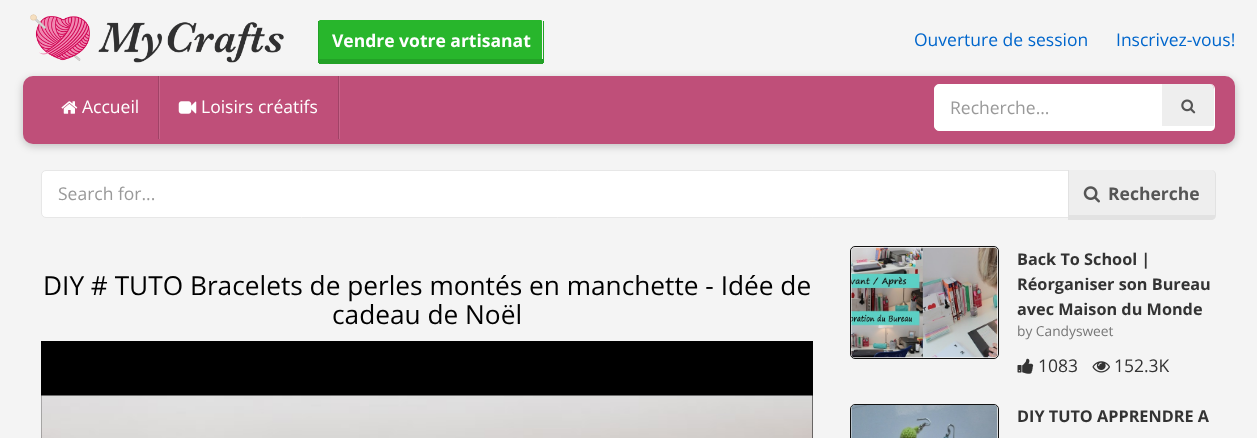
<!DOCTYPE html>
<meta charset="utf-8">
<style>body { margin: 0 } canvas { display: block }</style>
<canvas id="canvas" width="1257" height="438"></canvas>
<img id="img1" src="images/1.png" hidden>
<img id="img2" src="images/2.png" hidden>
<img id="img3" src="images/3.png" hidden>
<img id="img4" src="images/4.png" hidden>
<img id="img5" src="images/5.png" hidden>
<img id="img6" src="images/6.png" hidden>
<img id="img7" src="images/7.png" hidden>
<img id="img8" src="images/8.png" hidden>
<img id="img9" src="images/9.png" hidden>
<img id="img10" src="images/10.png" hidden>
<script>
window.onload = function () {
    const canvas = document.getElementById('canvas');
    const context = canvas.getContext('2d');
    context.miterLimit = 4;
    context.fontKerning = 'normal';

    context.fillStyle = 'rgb(244, 244, 244)';
    context.fillRect(0, 0, 1257, 438);
    context.drawImage(document.getElementById('img1'), 30, 14, 254, 49);
    context.fillStyle = 'rgb(40, 182, 44)';
    context.beginPath();
    context.moveTo(320, 20);
    context.lineTo(541, 20);
    context.bezierCurveTo(542, 20, 542, 21, 542, 22);
    context.lineTo(542, 59);
    context.lineTo(319, 59);
    context.lineTo(319, 22);
    context.bezierCurveTo(319, 21, 319, 20, 320, 20);
    context.closePath();
    context.fill();
    context.fillStyle = 'rgb(35, 161, 39)';
    context.fillRect(543, 21, 1, 42);
    context.fillRect(319, 59, 224, 5);
    context.fillRect(318, 21, 1, 42);
    context.fillStyle = 'rgba(0, 0, 0, 0.22)';
    context.filter = 'blur(4px)';
    context.beginPath();
    context.roundRect(23, 79, 1212, 67, 10);
    context.fill();
    context.filter = 'none';
    context.fillStyle = 'rgb(191, 79, 121)';
    context.beginPath();
    context.roundRect(23, 76, 1212, 68, 10);
    context.fill();
    context.fillStyle = 'rgb(160, 66, 102)';
    context.fillRect(158, 76, 1, 63);
    context.drawImage(document.getElementById('img2'), 61, 101, 17, 13);
    context.fillRect(338, 76, 1, 63);
    context.fillStyle = 'rgb(199, 100, 137)';
    context.fillRect(159, 76, 1, 63);
    context.drawImage(document.getElementById('img3'), 178, 101, 19, 13);
    context.fillRect(339, 76, 1, 63);
    context.fillStyle = 'rgb(255, 255, 255)';
    context.beginPath();
    context.roundRect(934.5, 84.5, 228, 46, [4.5, 0, 0, 4.5]);
    context.fill();
    context.strokeStyle = 'rgb(255, 255, 255)';
    context.stroke();
    context.fillStyle = 'rgb(238, 238, 238)';
    context.beginPath();
    context.moveTo(1162, 84);
    context.lineTo(1210, 84);
    context.bezierCurveTo(1212, 84, 1214, 86, 1214, 89);
    context.lineTo(1214, 126);
    context.lineTo(1162, 126);
    context.closePath();
    context.fill();
    context.fillStyle = 'rgb(255, 255, 255)';
    context.beginPath();
    context.moveTo(1161, 84);
    context.lineTo(1210, 84);
    context.bezierCurveTo(1213, 84, 1215, 86, 1215, 89);
    context.lineTo(1215, 126);
    context.bezierCurveTo(1215, 129, 1213, 131, 1210, 131);
    context.lineTo(1161, 131);
    context.closePath();
    context.moveTo(1162, 84);
    context.lineTo(1210, 84);
    context.bezierCurveTo(1212, 84, 1214, 86, 1214, 89);
    context.lineTo(1214, 126);
    context.lineTo(1162, 126);
    context.closePath();
    context.fill('evenodd');
    context.drawImage(document.getElementById('img4'), 1181, 99, 15, 15);
    context.beginPath();
    context.roundRect(41.5, 170.5, 1027, 47, [4.5, 0, 0, 4.5]);
    context.fill();
    context.strokeStyle = 'rgb(231, 231, 231)';
    context.stroke();
    context.fillStyle = 'rgb(238, 238, 238)';
    context.beginPath();
    context.moveTo(1069, 170);
    context.lineTo(1211, 170);
    context.bezierCurveTo(1213, 170, 1215, 172, 1215, 175);
    context.lineTo(1215, 215);
    context.lineTo(1069, 215);
    context.closePath();
    context.fill();
    context.fillStyle = 'rgb(226, 226, 226)';
    context.beginPath();
    context.moveTo(1068, 170);
    context.lineTo(1211, 170);
    context.bezierCurveTo(1214, 170, 1216, 172, 1216, 175);
    context.lineTo(1216, 215);
    context.bezierCurveTo(1216, 218, 1214, 220, 1211, 220);
    context.lineTo(1068, 220);
    context.closePath();
    context.moveTo(1069, 170);
    context.lineTo(1211, 170);
    context.bezierCurveTo(1213, 170, 1215, 172, 1215, 175);
    context.lineTo(1215, 215);
    context.lineTo(1069, 215);
    context.closePath();
    context.fill('evenodd');
    context.drawImage(document.getElementById('img5'), 1083, 186, 17, 17);
    context.fillStyle = 'rgb(0, 0, 0)';
    context.fillRect(41, 341, 772, 97);
    context.drawImage(document.getElementById('img6'), 41, 395, 772, 43);
    context.beginPath();
    context.roundRect(850.5, 246.5, 148, 112, 4.5);
    context.strokeStyle = 'rgb(17, 17, 17)';
    context.stroke();
    context.drawImage(document.getElementById('img7'), 851, 247, 147, 111);
    context.drawImage(document.getElementById('img8'), 1017, 358, 17, 16);
    context.drawImage(document.getElementById('img9'), 1092, 361, 18, 12);
    context.beginPath();
    context.roundRect(850.5, 404.5, 148, 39, 4.5);
    context.stroke();
    context.drawImage(document.getElementById('img10'), 851, 405, 147, 33);
    context.font = 'bold 17.5px Open Sans';
    context.fillStyle = 'rgb(255, 255, 255)';
    context.fillText('Vendre votre artisanat', 332, 47);
    context.font = '17.5px Open Sans';
    context.fillStyle = 'rgb(0, 102, 204)';
    context.fillText('Ouverture de session', 914, 46);
    context.fillText('Inscrivez-vous!', 1116, 46);
    context.fillStyle = 'rgb(255, 255, 255)';
    context.fillText('Accueil', 82, 113);
    context.fillText('Loisirs créatifs', 201, 113);
    context.fillStyle = 'rgb(153, 153, 153)';
    context.fillText('Recherche...', 950, 114);
    context.fillText('Search for...', 58, 200);
    context.font = 'bold 17.5px Open Sans';
    context.fillStyle = 'rgb(85, 85, 85)';
    context.fillText('Recherche', 1108, 200);
    context.font = '26.25px Open Sans';
    context.fillStyle = 'rgb(0, 0, 0)';
    context.fillText('DIY # TUTO Bracelets de perles montés en manchette - Idée de', 43, 295);
    context.fillText('cadeau de Noël', 332, 324);
    context.font = 'bold 16.25px Open Sans';
    context.fillStyle = 'rgb(51, 51, 51)';
    context.fillText('Back To School |', 1017, 265);
    context.fillText('Réorganiser son Bureau', 1017, 290);
    context.fillText('avec Maison du Monde', 1017, 315);
    context.font = '13.75px Open Sans';
    context.fillStyle = 'rgb(119, 119, 119)';
    context.fillText('by Candysweet', 1017, 336);
    context.font = '17.5px Open Sans';
    context.fillStyle = 'rgb(51, 51, 51)';
    context.fillText('1083', 1038, 372);
    context.fillText('152.3K', 1114, 372);
    context.font = 'bold 16.25px Open Sans';
    context.fillText('DIY TUTO APPRENDRE A', 1017, 422);
};
</script>
